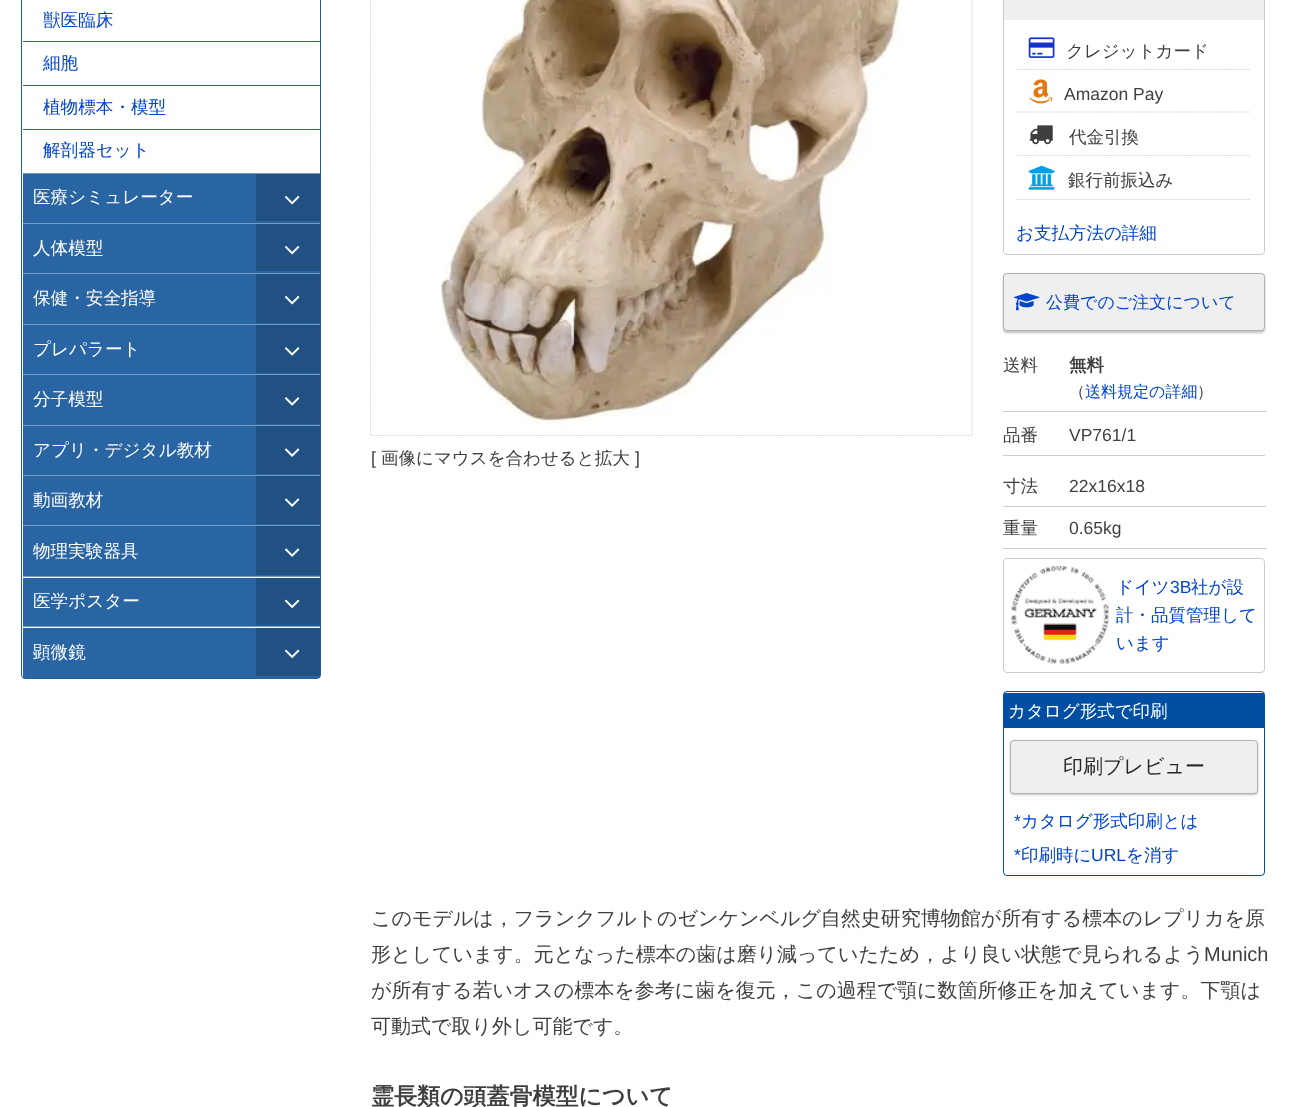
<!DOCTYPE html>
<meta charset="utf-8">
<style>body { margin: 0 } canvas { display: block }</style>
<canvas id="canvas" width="1292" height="1107"></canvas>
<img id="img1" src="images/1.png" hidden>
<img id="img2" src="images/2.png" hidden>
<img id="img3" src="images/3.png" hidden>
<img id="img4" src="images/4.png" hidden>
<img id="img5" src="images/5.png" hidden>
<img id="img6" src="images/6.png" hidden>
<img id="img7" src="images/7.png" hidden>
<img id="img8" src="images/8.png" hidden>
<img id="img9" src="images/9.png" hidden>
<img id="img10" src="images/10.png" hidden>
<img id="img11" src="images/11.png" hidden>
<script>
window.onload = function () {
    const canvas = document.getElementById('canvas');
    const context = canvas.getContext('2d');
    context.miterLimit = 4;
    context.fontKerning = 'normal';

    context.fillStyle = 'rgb(255, 255, 255)';
    context.fillRect(0, 0, 1292, 1107);
    context.beginPath();
    context.roundRect(21.5, -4.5, 299, 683, 3.5);
    context.strokeStyle = 'rgb(32, 94, 161)';
    context.stroke();
    context.fillStyle = 'rgb(119, 157, 197)';
    context.fillRect(23, 173, 297, 1);
    context.fillStyle = 'rgb(41, 100, 163)';
    context.fillRect(23, 41, 297, 1);
    context.fillRect(23, 85, 297, 1);
    context.fillRect(23, 129, 297, 1);
    context.fillStyle = 'rgb(119, 157, 197)';
    context.fillRect(23, 223, 297, 1);
    context.fillStyle = 'rgb(41, 100, 163)';
    context.fillRect(23, 174, 297, 49);
    context.fillStyle = 'rgb(33, 80, 130)';
    context.fillRect(256, 174, 64, 47);
    context.drawImage(document.getElementById('img1'), 284, 196, 16, 9);
    context.fillStyle = 'rgb(119, 157, 197)';
    context.fillRect(23, 273, 297, 1);
    context.fillStyle = 'rgb(41, 100, 163)';
    context.fillRect(23, 224, 297, 49);
    context.fillStyle = 'rgb(33, 80, 130)';
    context.fillRect(256, 224, 64, 47);
    context.drawImage(document.getElementById('img1'), 284, 246, 16, 9);
    context.fillStyle = 'rgb(119, 157, 197)';
    context.fillRect(23, 324, 297, 1);
    context.fillStyle = 'rgb(41, 100, 163)';
    context.fillRect(23, 274, 297, 50);
    context.fillStyle = 'rgb(33, 80, 130)';
    context.fillRect(256, 274, 64, 49);
    context.drawImage(document.getElementById('img1'), 284, 296, 16, 9);
    context.fillStyle = 'rgb(119, 157, 197)';
    context.fillRect(23, 374, 297, 1);
    context.fillStyle = 'rgb(41, 100, 163)';
    context.fillRect(23, 325, 297, 49);
    context.fillStyle = 'rgb(33, 80, 130)';
    context.fillRect(256, 325, 64, 48);
    context.drawImage(document.getElementById('img2'), 284, 347, 16, 9);
    context.fillStyle = 'rgb(119, 157, 197)';
    context.fillRect(23, 425, 297, 1);
    context.fillStyle = 'rgb(41, 100, 163)';
    context.fillRect(23, 375, 297, 50);
    context.fillStyle = 'rgb(33, 80, 130)';
    context.fillRect(256, 375, 64, 49);
    context.drawImage(document.getElementById('img2'), 284, 397, 16, 9);
    context.fillStyle = 'rgb(119, 157, 197)';
    context.fillRect(23, 475, 297, 1);
    context.fillStyle = 'rgb(41, 100, 163)';
    context.fillRect(23, 426, 297, 49);
    context.fillStyle = 'rgb(33, 80, 130)';
    context.fillRect(256, 426, 64, 48);
    context.drawImage(document.getElementById('img3'), 284, 448, 16, 9);
    context.fillStyle = 'rgb(119, 157, 197)';
    context.fillRect(23, 525, 297, 1);
    context.fillStyle = 'rgb(41, 100, 163)';
    context.fillRect(23, 476, 297, 49);
    context.fillStyle = 'rgb(33, 80, 130)';
    context.fillRect(256, 476, 64, 48);
    context.drawImage(document.getElementById('img3'), 284, 498, 16, 9);
    context.fillStyle = 'rgb(119, 157, 197)';
    context.fillRect(23, 576, 297, 1);
    context.fillStyle = 'rgb(41, 100, 163)';
    context.fillRect(23, 526, 297, 50);
    context.fillStyle = 'rgb(33, 80, 130)';
    context.fillRect(256, 526, 64, 49);
    context.drawImage(document.getElementById('img3'), 284, 548, 16, 9);
    context.fillStyle = 'rgb(119, 157, 197)';
    context.fillRect(23, 626, 297, 1);
    context.fillStyle = 'rgb(41, 100, 163)';
    context.fillRect(23, 578, 297, 48);
    context.fillStyle = 'rgb(33, 80, 130)';
    context.fillRect(256, 578, 64, 47);
    context.drawImage(document.getElementById('img4'), 284, 599, 16, 10);
    context.fillStyle = 'rgb(41, 100, 163)';
    context.fillRect(23, 628, 297, 50);
    context.fillStyle = 'rgb(33, 80, 130)';
    context.fillRect(256, 628, 64, 48);
    context.drawImage(document.getElementById('img4'), 284, 649, 16, 10);
    context.drawImage(document.getElementById('img5'), 439, 0, 462, 425);
    context.beginPath();
    context.moveTo(370.5, -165.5);
    context.lineTo(972, -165.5);
    context.lineTo(972, 435.5);
    context.lineTo(370.5, 435.5);
    context.closePath();
    context.strokeStyle = 'rgb(204, 204, 204)';
    context.lineWidth = 1.2;
    context.setLineDash([1.25, 1.25]);
    context.stroke();
    context.beginPath();
    context.roundRect(1003.5, -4.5, 261, 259, 3.5);
    context.lineWidth = 1;
    context.setLineDash([]);
    context.stroke();
    context.fillStyle = 'rgb(239, 239, 239)';
    context.fillRect(1004, 0, 260, 20);
    context.beginPath();
    context.moveTo(1016, 69.5);
    context.lineTo(1251, 69.5);
    context.lineWidth = 1.2;
    context.setLineDash([1.25, 1.25]);
    context.stroke();
    context.drawImage(document.getElementById('img6'), 1028, 37, 27, 21);
    context.beginPath();
    context.moveTo(1016, 112);
    context.lineTo(1251, 112);
    context.stroke();
    context.drawImage(document.getElementById('img7'), 1029, 79, 24, 25);
    context.beginPath();
    context.moveTo(1016, 155.5);
    context.lineTo(1251, 155.5);
    context.stroke();
    context.drawImage(document.getElementById('img8'), 1029, 125, 24, 20);
    context.beginPath();
    context.moveTo(1016, 199.5);
    context.lineTo(1251, 199.5);
    context.stroke();
    context.drawImage(document.getElementById('img9'), 1028, 165, 27, 25);
    context.fillStyle = 'rgba(10, 10, 10, 0.25)';
    context.filter = 'blur(1px)';
    context.beginPath();
    context.roundRect(1003, 274, 262, 59, 4);
    context.fill();
    context.filter = 'none';
    context.fillStyle = 'rgb(239, 239, 239)';
    context.beginPath();
    context.roundRect(1003.5, 273.5, 261, 57, 3.5);
    context.fill();
    context.strokeStyle = 'rgb(178, 178, 178)';
    context.lineWidth = 1;
    context.setLineDash([]);
    context.stroke();
    context.drawImage(document.getElementById('img10'), 1013, 293, 27, 18);
    context.fillStyle = 'rgb(204, 204, 204)';
    context.fillRect(1003, 411, 263, 1);
    context.fillRect(1003, 455, 262, 1);
    context.fillRect(1003, 506, 263, 1);
    context.fillRect(1003, 548, 263, 1);
    context.beginPath();
    context.roundRect(1003.5, 558.5, 261, 114, 3.5);
    context.strokeStyle = 'rgb(204, 204, 204)';
    context.stroke();
    context.drawImage(document.getElementById('img11'), 1011, 565, 98, 99);
    context.beginPath();
    context.roundRect(1003.5, 691.5, 261, 184, 3.5);
    context.strokeStyle = 'rgb(0, 79, 163)';
    context.stroke();
    context.fillStyle = 'rgb(0, 79, 163)';
    context.fillRect(1004, 693, 260, 35);
    context.fillStyle = 'rgba(10, 10, 10, 0.25)';
    context.filter = 'blur(1px)';
    context.beginPath();
    context.roundRect(1010, 741, 248, 54, 4);
    context.fill();
    context.filter = 'none';
    context.fillStyle = 'rgb(239, 239, 239)';
    context.beginPath();
    context.roundRect(1010.5, 740.5, 247, 53, 3.5);
    context.fill();
    context.strokeStyle = 'rgb(178, 178, 178)';
    context.stroke();
    context.font = '500 17.6px WenQuanYi Zen Hei';
    context.fillStyle = 'rgb(0, 68, 204)';
    context.fillText('獣医臨床', 43, 26);
    context.fillText('細胞', 43, 69);
    context.fillText('植物標本・模型', 43, 113);
    context.fillText('解剖器セット', 43, 156);
    context.fillStyle = 'rgb(255, 255, 255)';
    context.fillText('医療シミュレーター', 33, 203);
    context.fillText('人体模型', 33, 254);
    context.fillText('保健・安全指導', 33, 304);
    context.fillText('プレパラート', 33, 355);
    context.fillText('分子模型', 33, 405);
    context.fillText('アプリ・デジタル教材', 33, 456);
    context.fillText('動画教材', 33, 506);
    context.fillText('物理実験器具', 33, 557);
    context.fillText('医学ポスター', 33, 607);
    context.fillText('顕微鏡', 33, 658);
    context.font = '17.5px Liberation Sans';
    context.fillStyle = 'rgb(63, 63, 63)';
    context.fillText('[', 371, 464);
    context.font = '500 17.5px WenQuanYi Zen Hei';
    context.fillText('画像にマウスを合わせると拡大', 381, 464);
    context.font = '17.5px Liberation Sans';
    context.fillText(']', 635, 464);
    context.font = '500 17.5px WenQuanYi Zen Hei';
    context.fillText('クレジットカード', 1066, 57);
    context.font = '17.5px Liberation Sans';
    context.fillText('Amazon Pay', 1064, 100);
    context.font = '500 17.5px WenQuanYi Zen Hei';
    context.fillText('代金引換', 1069, 143);
    context.fillText('銀行前振込み', 1068, 186);
    context.fillStyle = 'rgb(0, 68, 204)';
    context.fillText('お支払方法の詳細', 1016, 239);
    context.font = '500 17px WenQuanYi Zen Hei';
    context.fillText('公費でのご注文について', 1046, 308);
    context.font = '500 17.5px WenQuanYi Zen Hei';
    context.fillStyle = 'rgb(63, 63, 63)';
    context.fillText('送料', 1003, 371);
    context.font = 'bold 17.5px WenQuanYi Zen Hei';
    context.fillText('無料', 1069, 371);
    context.font = '500 16px WenQuanYi Zen Hei';
    context.fillText('（', 1069, 397);
    context.fillStyle = 'rgb(0, 68, 204)';
    context.fillText('送料規定の詳細', 1085, 397);
    context.fillStyle = 'rgb(63, 63, 63)';
    context.fillText('）', 1197, 397);
    context.font = '500 17.5px WenQuanYi Zen Hei';
    context.fillText('品番', 1003, 441);
    context.font = '17.5px Liberation Sans';
    context.fillText('VP761/1', 1069, 441);
    context.font = '500 17.5px WenQuanYi Zen Hei';
    context.fillText('寸法', 1003, 492);
    context.font = '17.5px Liberation Sans';
    context.fillText('22x16x18', 1069, 492);
    context.font = '500 17.5px WenQuanYi Zen Hei';
    context.fillText('重量', 1003, 534);
    context.font = '17.5px Liberation Sans';
    context.fillText('0.65kg', 1069, 534);
    context.font = '500 17.5px WenQuanYi Zen Hei';
    context.fillStyle = 'rgb(0, 68, 204)';
    context.fillText('ドイツ', 1116, 593);
    context.font = '17.5px Liberation Sans';
    context.fillText('3B', 1170, 593);
    context.font = '500 17.5px WenQuanYi Zen Hei';
    context.fillText('社が設', 1191, 593);
    context.fillText('計・品質管理して', 1116, 621);
    context.fillText('います', 1116, 649);
    context.fillStyle = 'rgb(255, 255, 255)';
    context.fillText('カタログ形式で印刷', 1008, 717);
    context.font = '500 20px WenQuanYi Zen Hei';
    context.fillStyle = 'rgb(38, 38, 38)';
    context.fillText('印刷プレビュー', 1063, 773);
    context.font = '17.5px Liberation Sans';
    context.fillStyle = 'rgb(0, 68, 204)';
    context.fillText('*', 1014, 827);
    context.font = '500 17.5px WenQuanYi Zen Hei';
    context.fillText('カタログ形式印刷とは', 1021, 827);
    context.font = '17.5px Liberation Sans';
    context.fillText('*', 1014, 861);
    context.font = '500 17.5px WenQuanYi Zen Hei';
    context.fillText('印刷時に', 1021, 861);
    context.font = '17.5px Liberation Sans';
    context.fillText('URL', 1091, 861);
    context.font = '500 17.5px WenQuanYi Zen Hei';
    context.fillText('を消す', 1126, 861);
    context.font = '500 20px WenQuanYi Zen Hei';
    context.fillStyle = 'rgb(63, 63, 63)';
    context.fillText('このモデルは，フランクフルトのゼンケンベルグ自然史研究博物館が所有する標本のレプリカを原', 371, 925);
    context.fillText('形としています。元となった標本の歯は磨り減っていたため，より良い状態で見られるよう', 371, 961);
    context.font = '20px Liberation Sans';
    context.fillText('Munich', 1204, 961);
    context.font = '500 20px WenQuanYi Zen Hei';
    context.fillText('が所有する若いオスの標本を参考に歯を復元，この過程で顎に数箇所修正を加えています。下顎は', 371, 997);
    context.fillText('可動式で取り外し可能です。', 371, 1033);
    context.font = 'bold 23px WenQuanYi Zen Hei';
    context.fillText('霊長類の頭蓋骨模型について', 371, 1104);
};
</script>
